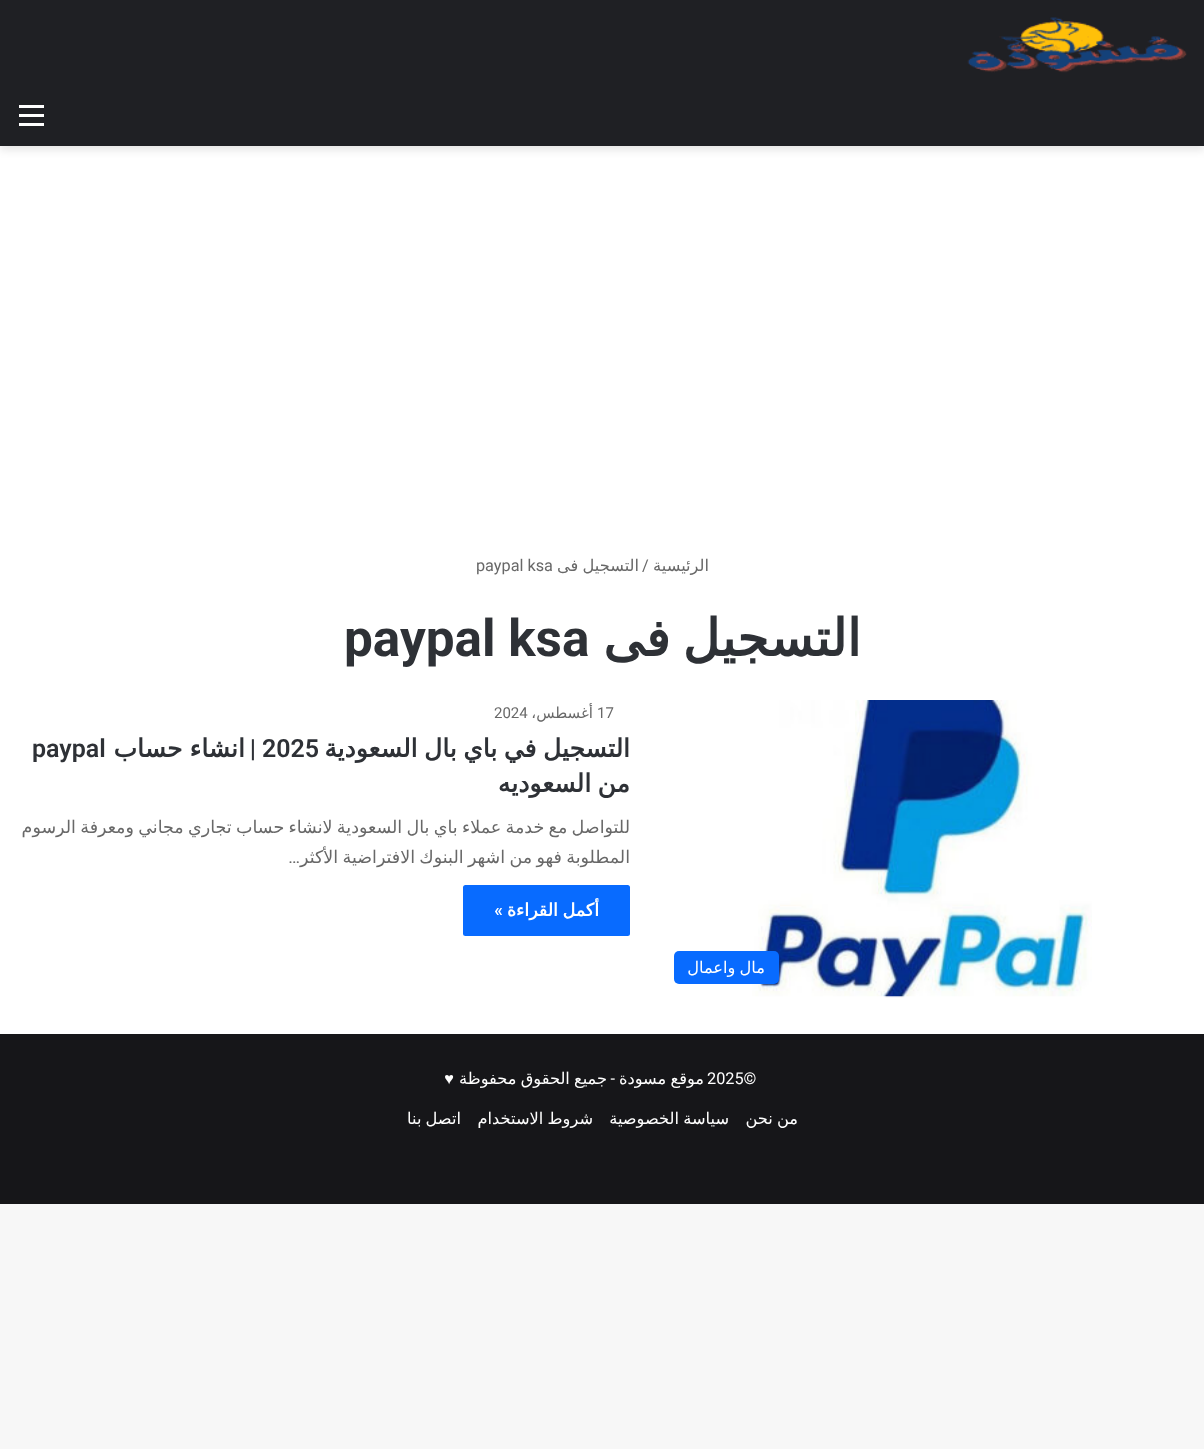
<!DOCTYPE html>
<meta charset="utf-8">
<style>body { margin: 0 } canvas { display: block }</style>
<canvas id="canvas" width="1204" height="1449"></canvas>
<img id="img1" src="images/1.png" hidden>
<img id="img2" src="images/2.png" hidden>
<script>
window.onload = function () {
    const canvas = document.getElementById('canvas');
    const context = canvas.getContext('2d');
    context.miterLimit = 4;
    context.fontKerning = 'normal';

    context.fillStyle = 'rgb(247, 247, 247)';
    context.fillRect(0, 0, 1204, 1449);
    context.fillStyle = 'rgb(255, 255, 255)';
    context.fillRect(0, 146, 1204, 888);
    context.fillStyle = 'rgba(0, 0, 0, 0.1)';
    context.filter = 'blur(4.5px)';
    context.beginPath();
    context.rect(0, 4, 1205, 146);
    context.fill();
    context.filter = 'none';
    context.fillStyle = 'rgb(31, 32, 36)';
    context.fillRect(0, 0, 1204, 146);
    context.drawImage(document.getElementById('img1'), 967, 17, 220, 56);
    context.fillStyle = 'rgb(255, 255, 255)';
    context.fillRect(19, 114, 25, 3);
    context.fillRect(19, 105, 25, 3);
    context.fillRect(19, 123, 25, 3);
    context.fillStyle = 'rgb(8, 107, 255)';
    context.beginPath();
    context.roundRect(463, 885, 167, 51, 2.5);
    context.fill();
    context.drawImage(document.getElementById('img2'), 752, 700, 340, 298);
    context.beginPath();
    context.roundRect(674, 951, 105, 33, 5);
    context.fill();
    context.fillStyle = 'rgb(22, 22, 25)';
    context.fillRect(0, 1034, 1204, 170);
    context.direction = 'rtl';
    context.font = '16.25px DejaVu Sans';
    context.fillStyle = 'rgb(104, 104, 104)';
    context.fillText('الرئيسية', 709, 571);
    context.direction = 'ltr';
    context.font = '16.25px Roboto';
    context.fillText('/', 642, 571);
    context.wordSpacing = '-1px';
    context.direction = 'rtl';
    context.font = '16.25px DejaVu Sans';
    context.fillText('التسجيل فى', 639, 571);
    context.wordSpacing = '0px';
    context.direction = 'ltr';
    context.font = '16.25px Roboto';
    context.fillText('paypal ksa', 476, 571);
    context.wordSpacing = '-4px';
    context.direction = 'rtl';
    context.font = 'bold 51.25px DejaVu Sans';
    context.fillStyle = 'rgb(46, 49, 54)';
    context.fillText('التسجيل فى', 861, 656);
    context.wordSpacing = '0px';
    context.direction = 'ltr';
    context.font = 'bold 51.25px Roboto';
    context.fillText('paypal ksa', 344, 656);
    context.font = '15px Roboto';
    context.fillStyle = 'rgb(104, 104, 104)';
    context.fillText('17', 597, 718);
    context.direction = 'rtl';
    context.font = '15px DejaVu Sans';
    context.fillText('أغسطس،', 593, 718);
    context.direction = 'ltr';
    context.font = '15px Roboto';
    context.fillText('2024', 494, 718);
    context.wordSpacing = '-1.5px';
    context.direction = 'rtl';
    context.font = 'bold 25px DejaVu Sans';
    context.fillStyle = 'rgb(46, 49, 54)';
    context.fillText('التسجيل في باي بال السعودية', 630, 757);
    context.wordSpacing = '0px';
    context.direction = 'ltr';
    context.font = '600 25px Roboto';
    context.fillText('2025', 262, 757);
    context.direction = 'rtl';
    context.fillText('|', 256, 757);
    context.wordSpacing = '-1px';
    context.font = 'bold 25px DejaVu Sans';
    context.fillText('انشاء حساب', 245, 757);
    context.wordSpacing = '0px';
    context.direction = 'ltr';
    context.font = '600 25px Roboto';
    context.fillText('paypal', 32, 757);
    context.wordSpacing = '-1.5px';
    context.direction = 'rtl';
    context.font = 'bold 25px DejaVu Sans';
    context.fillText('من السعوديه', 630, 792);
    context.wordSpacing = '-1.25px';
    context.font = '17.5px DejaVu Sans';
    context.fillStyle = 'rgb(104, 104, 104)';
    context.fillText('للتواصل مع خدمة عملاء باي بال السعودية لانشاء حساب تجاري مجاني ومعرفة الرسوم', 630, 833);
    context.fillText('المطلوبة فهو من اشهر البنوك الافتراضية الأكثر', 630, 863);
    context.wordSpacing = '0px';
    context.font = '17.5px Roboto';
    context.fillText('…', 300, 863);
    context.wordSpacing = '-1px';
    context.font = 'bold 17.5px DejaVu Sans';
    context.fillStyle = 'rgb(255, 255, 255)';
    context.fillText('أكمل القراءة', 599, 916);
    context.wordSpacing = '0px';
    context.font = '600 17.5px Roboto';
    context.fillText('»', 503, 916);
    context.wordSpacing = '-1px';
    context.font = '16.25px DejaVu Sans';
    context.fillText('مال واعمال', 765, 973);
    context.wordSpacing = '0px';
    context.direction = 'ltr';
    context.font = '16.25px Roboto';
    context.fillText('2025©', 707, 1084);
    context.wordSpacing = '-1px';
    context.direction = 'rtl';
    context.font = '16.25px DejaVu Sans';
    context.fillText('موقع مسودة', 704, 1084);
    context.wordSpacing = '0px';
    context.font = '16.25px Roboto';
    context.fillText('-', 615, 1084);
    context.wordSpacing = '-1px';
    context.font = '16.25px DejaVu Sans';
    context.fillText('جميع الحقوق محفوظة', 607, 1084);
    context.wordSpacing = '0px';
    context.font = '16.25px Liberation Sans';
    context.fillText('♥', 454, 1084);
    context.wordSpacing = '-1px';
    context.font = '16.25px DejaVu Sans';
    context.fillText('من نحن', 798, 1124);
    context.fillText('سياسة الخصوصية', 729, 1124);
    context.fillText('شروط الاستخدام', 593, 1124);
    context.fillText('اتصل بنا', 461, 1124);
};
</script>
